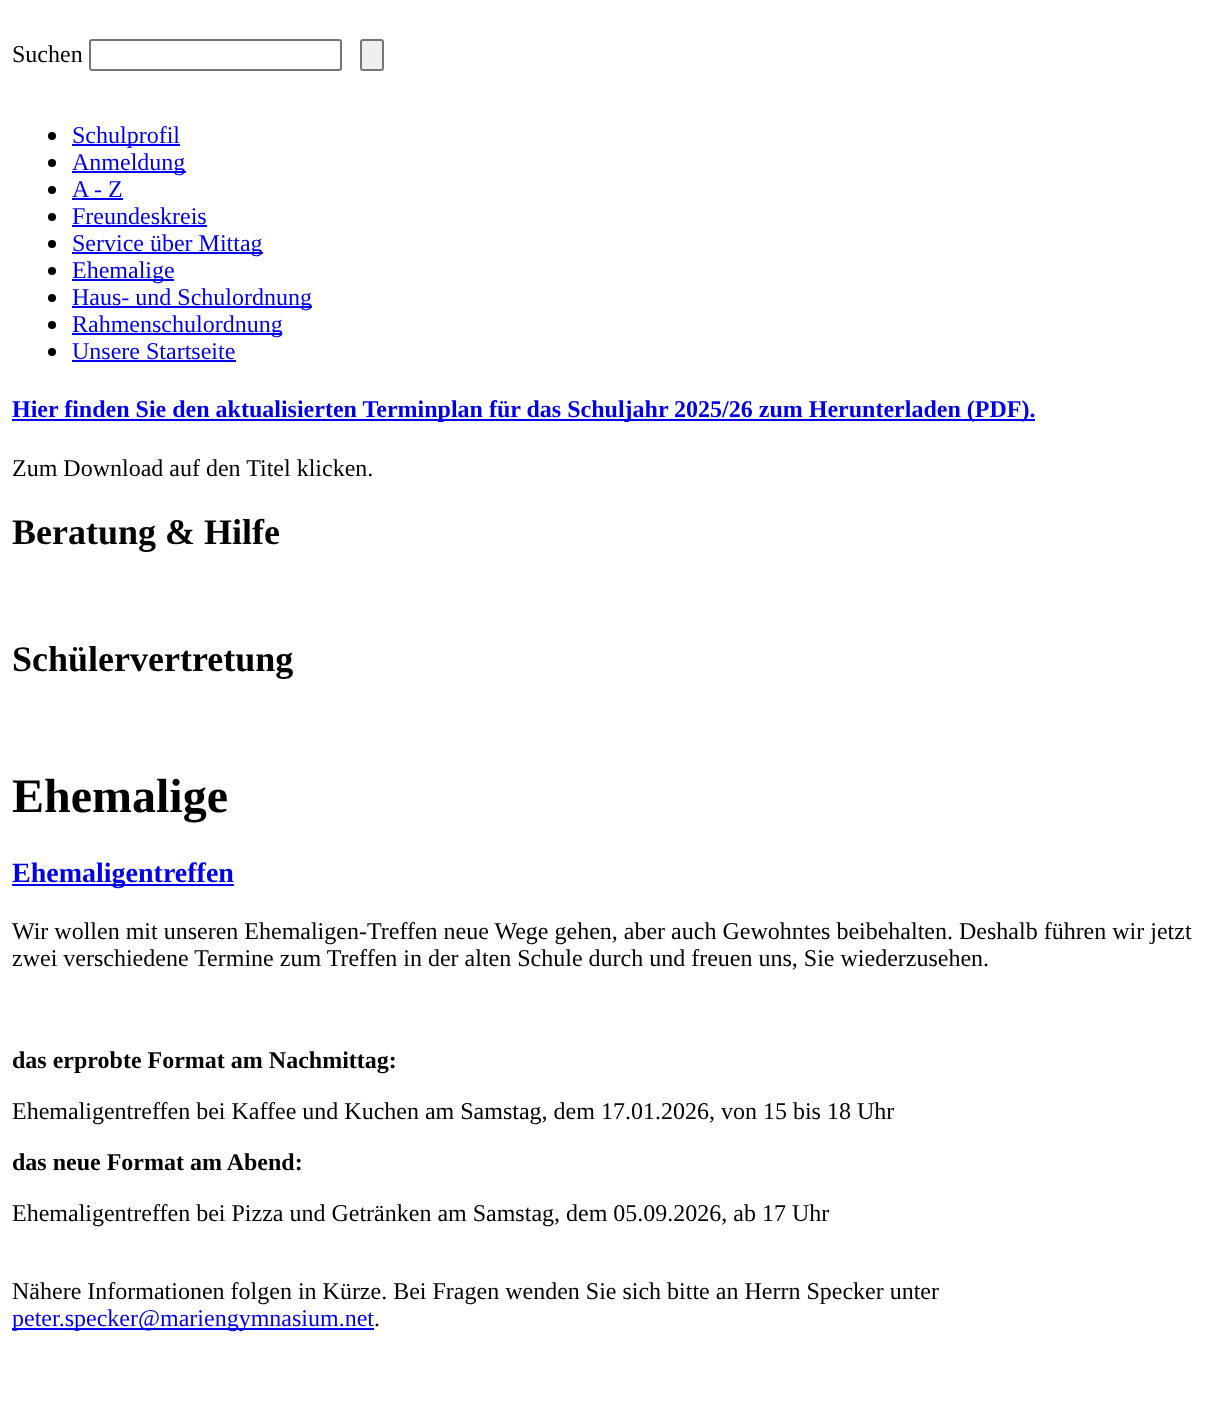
<!DOCTYPE html>
<meta charset="utf-8">
<style>body { margin: 0 } canvas { display: block }</style>
<canvas id="canvas" width="1227" height="1404"></canvas>
<script>
window.onload = function () {
    const canvas = document.getElementById('canvas');
    const context = canvas.getContext('2d');
    context.miterLimit = 4;
    context.fontKerning = 'normal';

    context.fillStyle = 'rgb(255, 255, 255)';
    context.fillRect(0, 0, 1227, 1404);
    context.beginPath();
    context.roundRect(90, 40, 251, 30, 2);
    context.strokeStyle = 'rgb(118, 118, 118)';
    context.lineWidth = 2;
    context.stroke();
    context.fillStyle = 'rgb(239, 239, 239)';
    context.beginPath();
    context.roundRect(361, 40, 22, 30, 2);
    context.fill();
    context.stroke();
    context.fillStyle = 'rgb(0, 0, 0)';
    context.beginPath();
    context.arc(52, 136, 4, 0, 2 * Math.PI);
    context.fill();
    context.fillStyle = 'rgb(0, 0, 238)';
    context.fillRect(72, 144, 108, 2);
    context.fillStyle = 'rgb(0, 0, 0)';
    context.beginPath();
    context.arc(52, 163, 4, 0, 2 * Math.PI);
    context.fill();
    context.fillStyle = 'rgb(0, 0, 238)';
    context.fillRect(72, 171, 114, 2);
    context.fillStyle = 'rgb(0, 0, 0)';
    context.beginPath();
    context.arc(52, 190, 4, 0, 2 * Math.PI);
    context.fill();
    context.fillStyle = 'rgb(0, 0, 238)';
    context.fillRect(72, 198, 51, 2);
    context.fillStyle = 'rgb(0, 0, 0)';
    context.beginPath();
    context.arc(52, 217, 4, 0, 2 * Math.PI);
    context.fill();
    context.fillStyle = 'rgb(0, 0, 238)';
    context.fillRect(72, 225, 135, 2);
    context.fillStyle = 'rgb(0, 0, 0)';
    context.beginPath();
    context.arc(52, 244, 4, 0, 2 * Math.PI);
    context.fill();
    context.fillStyle = 'rgb(0, 0, 238)';
    context.fillRect(72, 252, 191, 2);
    context.fillStyle = 'rgb(0, 0, 0)';
    context.beginPath();
    context.arc(52, 271, 4, 0, 2 * Math.PI);
    context.fill();
    context.fillStyle = 'rgb(0, 0, 238)';
    context.fillRect(72, 279, 102, 2);
    context.fillStyle = 'rgb(0, 0, 0)';
    context.beginPath();
    context.arc(52, 298, 4, 0, 2 * Math.PI);
    context.fill();
    context.fillStyle = 'rgb(0, 0, 238)';
    context.fillRect(72, 306, 240, 2);
    context.fillStyle = 'rgb(0, 0, 0)';
    context.beginPath();
    context.arc(52, 325, 4, 0, 2 * Math.PI);
    context.fill();
    context.fillStyle = 'rgb(0, 0, 238)';
    context.fillRect(72, 333, 210, 2);
    context.fillStyle = 'rgb(0, 0, 0)';
    context.beginPath();
    context.arc(52, 352, 4, 0, 2 * Math.PI);
    context.fill();
    context.fillStyle = 'rgb(0, 0, 238)';
    context.fillRect(72, 360, 164, 2);
    context.fillRect(12, 419, 1023, 2);
    context.fillRect(12, 884, 222, 2);
    context.fillRect(12, 1328, 362, 2);
    context.font = '24px Liberation Serif';
    context.fillStyle = 'rgb(0, 0, 0)';
    context.fillText('Suchen', 12, 62);
    context.fillStyle = 'rgb(0, 0, 238)';
    context.fillText('Schulprofil', 72, 143);
    context.fillText('Anmeldung', 72, 170);
    context.fillText('A - Z', 72, 197);
    context.fillText('Freundeskreis', 72, 224);
    context.fillText('Service über Mittag', 72, 251);
    context.fillText('Ehemalige', 72, 278);
    context.fillText('Haus- und Schulordnung', 72, 305);
    context.fillText('Rahmenschulordnung', 72, 332);
    context.fillText('Unsere Startseite', 72, 359);
    context.font = 'bold 24px Liberation Serif';
    context.fillText('Hier finden Sie den aktualisierten Terminplan für das Schuljahr 2025/26 zum Herunterladen (PDF).', 12, 417);
    context.font = '24px Liberation Serif';
    context.fillStyle = 'rgb(0, 0, 0)';
    context.fillText('Zum Download auf den Titel klicken.', 12, 476);
    context.font = 'bold 36px Liberation Serif';
    context.fillText('Beratung & Hilfe', 12, 544);
    context.fillText('Schülervertretung', 12, 671);
    context.font = 'bold 48px Liberation Serif';
    context.fillText('Ehemalige', 12, 812);
    context.font = 'bold 28px Liberation Serif';
    context.fillStyle = 'rgb(0, 0, 238)';
    context.fillText('Ehemaligentreffen', 12, 882);
    context.font = '24px Liberation Serif';
    context.fillStyle = 'rgb(0, 0, 0)';
    context.fillText('Wir wollen mit unseren Ehemaligen-Treffen neue Wege gehen, aber auch Gewohntes beibehalten. Deshalb führen wir jetzt', 12, 939);
    context.fillText('zwei verschiedene Termine zum Treffen in der alten Schule durch und freuen uns, Sie wiederzusehen.', 12, 966);
    context.font = 'bold 24px Liberation Serif';
    context.fillText('das erprobte Format am Nachmittag:', 12, 1068);
    context.font = '24px Liberation Serif';
    context.fillText('Ehemaligentreffen bei Kaffee und Kuchen am Samstag, dem 17.01.2026, von 15 bis 18 Uhr', 12, 1119);
    context.font = 'bold 24px Liberation Serif';
    context.fillText('das neue Format am Abend:', 12, 1170);
    context.font = '24px Liberation Serif';
    context.fillText('Ehemaligentreffen bei Pizza und Getränken am Samstag, dem 05.09.2026, ab 17 Uhr', 12, 1221);
    context.fillText('Nähere Informationen folgen in Kürze. Bei Fragen wenden Sie sich bitte an Herrn Specker unter', 12, 1299);
    context.fillStyle = 'rgb(0, 0, 238)';
    context.fillText('peter.specker@mariengymnasium.net', 12, 1326);
    context.fillStyle = 'rgb(0, 0, 0)';
    context.fillText('.', 374, 1326);
};
</script>
